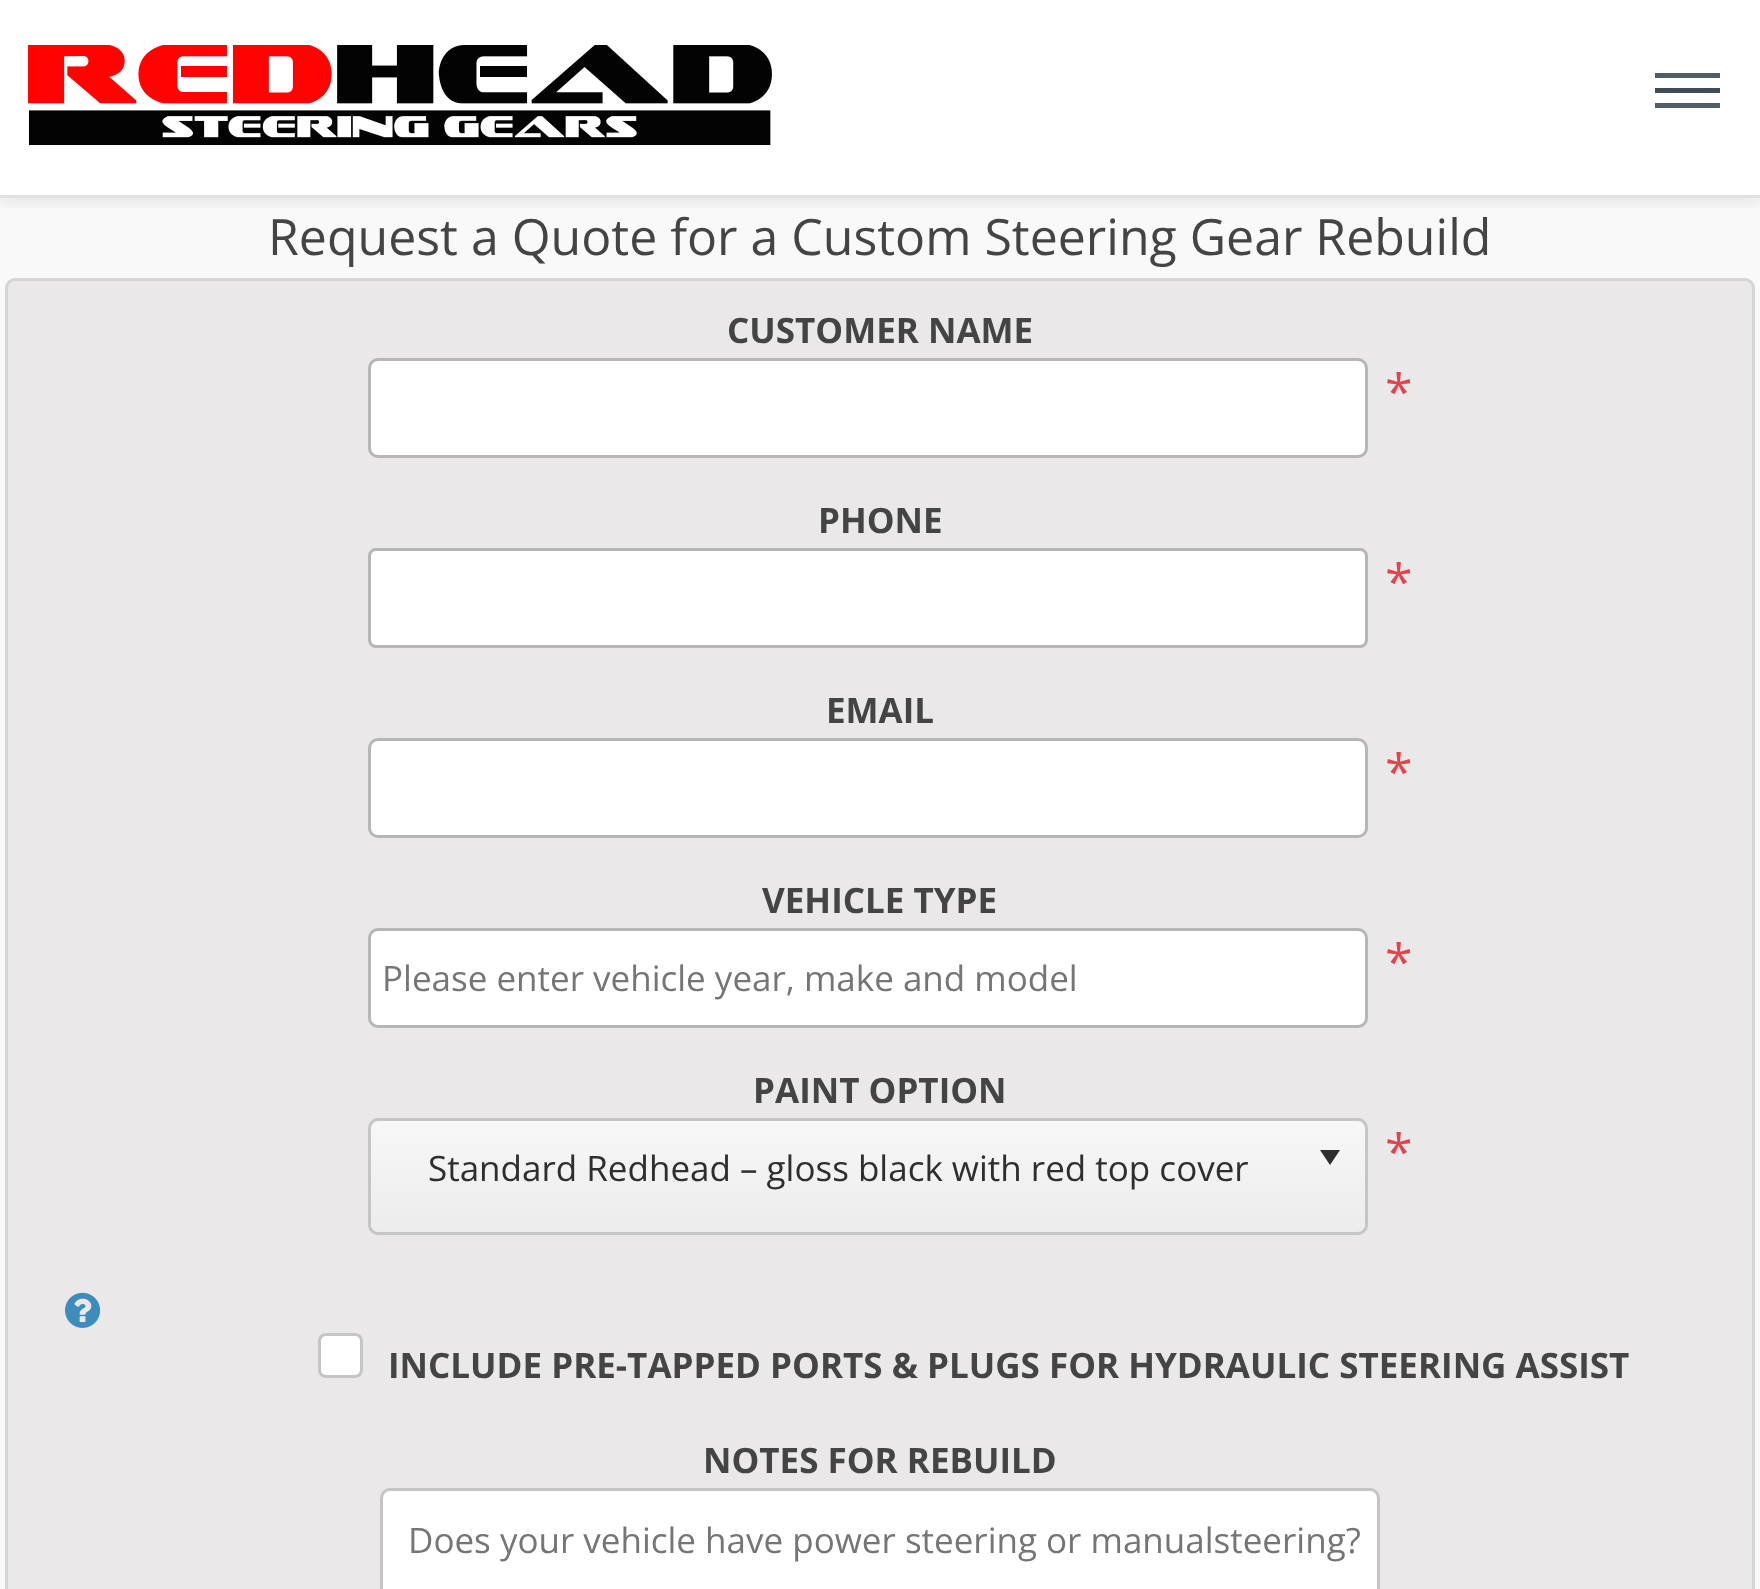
<!DOCTYPE html>
<meta charset="utf-8">
<style>body { margin: 0 } canvas { display: block }</style>
<canvas id="canvas" width="1760" height="1589"></canvas>
<img id="img1" src="images/1.png" hidden>
<img id="img2" src="images/2.png" hidden>
<script>
window.onload = function () {
    const canvas = document.getElementById('canvas');
    const context = canvas.getContext('2d');
    context.miterLimit = 4;
    context.fontKerning = 'normal';
    let gradient;

    context.fillStyle = 'rgb(249, 249, 249)';
    context.fillRect(0, 0, 1760, 1589);
    context.save();
    context.beginPath();
    context.rect(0, 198, 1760, 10);
    context.clip();
    context.fillStyle = 'rgba(0, 0, 0, 0.1)';
    context.filter = 'blur(10px)';
    context.beginPath();
    context.rect(0, 3, 1760, 197);
    context.fill();
    context.filter = 'none';
    context.restore();
    context.fillStyle = 'rgba(255, 255, 255, 0.95)';
    context.fillRect(0, 0, 1760, 195);
    context.fillStyle = 'rgb(225, 225, 225)';
    context.fillRect(0, 195, 1760, 3);
    context.drawImage(document.getElementById('img1'), 28, 45, 744, 100);
    context.fillStyle = 'rgb(82, 92, 99)';
    context.fillRect(1655, 73, 65, 5);
    context.fillStyle = 'rgb(65, 76, 84)';
    context.fillRect(1655, 88, 65, 5);
    context.fillStyle = 'rgb(82, 92, 99)';
    context.fillRect(1655, 103, 65, 5);
    context.fillStyle = 'rgb(234, 232, 232)';
    context.beginPath();
    context.roundRect(6.5, 279.5, 1747, 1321, 8.5);
    context.fill();
    context.strokeStyle = 'rgb(213, 213, 213)';
    context.lineWidth = 3;
    context.stroke();
    context.fillStyle = 'rgb(255, 255, 255)';
    context.beginPath();
    context.roundRect(369.5, 359.5, 997, 97, 8.5);
    context.fill();
    context.strokeStyle = 'rgb(182, 182, 182)';
    context.stroke();
    context.beginPath();
    context.roundRect(369.5, 549.5, 997, 97, 6.5);
    context.fill();
    context.stroke();
    context.beginPath();
    context.roundRect(369.5, 739.5, 997, 97, 8.5);
    context.fill();
    context.stroke();
    context.beginPath();
    context.roundRect(369.5, 929.5, 997, 97, 8.5);
    context.fill();
    context.stroke();
    context.fillStyle = 'rgb(236, 236, 236)';
    context.beginPath();
    context.roundRect(368, 1118, 1000, 117, 10);
    context.fill();
    context.save();
    context.beginPath();
    context.roundRect(368, 1118, 1000, 117, 10);
    context.clip();
    gradient = context.createLinearGradient(868, 1120, 868, 1233);
    gradient.addColorStop(0, 'rgba(255, 255, 255, 0.6)');
    gradient.addColorStop(1, 'rgba(255, 255, 255, 0)');
    context.fillStyle = gradient;
    context.fillRect(368, 1120, 1000, 109);
    context.restore();
    context.beginPath();
    context.roundRect(369.5, 1119.5, 997, 114, 8.5);
    context.strokeStyle = 'rgb(197, 197, 197)';
    context.stroke();
    context.fillStyle = 'rgb(46, 46, 46)';
    context.beginPath();
    context.moveTo(1330, 1165);
    context.lineTo(1320, 1150);
    context.lineTo(1340, 1150);
    context.closePath();
    context.fill();
    context.drawImage(document.getElementById('img2'), 65, 1292, 36, 36);
    context.fillStyle = 'rgb(255, 255, 255)';
    context.beginPath();
    context.roundRect(319.5, 1334.5, 42, 42, 6.5);
    context.fill();
    context.stroke();
    context.beginPath();
    context.roundRect(381.5, 1489.5, 997, 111, 8.5);
    context.fill();
    context.stroke();
    context.font = '50px Open Sans';
    context.fillStyle = 'rgb(68, 68, 68)';
    context.fillText('Request a Quote for a Custom Steering Gear Rebuild', 268, 255);
    context.font = 'bold 35px Open Sans';
    context.fillText('CUSTOMER NAME', 727, 343);
    context.font = '50px Open Sans';
    context.fillStyle = 'rgb(228, 67, 75)';
    context.fillText('*', 1385, 410);
    context.font = 'bold 35px Open Sans';
    context.fillStyle = 'rgb(68, 68, 68)';
    context.fillText('PHONE', 818, 533);
    context.font = '50px Open Sans';
    context.fillStyle = 'rgb(228, 67, 75)';
    context.fillText('*', 1385, 600);
    context.font = 'bold 35px Open Sans';
    context.fillStyle = 'rgb(68, 68, 68)';
    context.fillText('EMAIL', 826, 723);
    context.font = '50px Open Sans';
    context.fillStyle = 'rgb(228, 67, 75)';
    context.fillText('*', 1385, 790);
    context.font = 'bold 35px Open Sans';
    context.fillStyle = 'rgb(68, 68, 68)';
    context.fillText('VEHICLE TYPE', 762, 913);
    context.font = '50px Open Sans';
    context.fillStyle = 'rgb(228, 67, 75)';
    context.fillText('*', 1385, 980);
    context.font = '35px Open Sans';
    context.fillStyle = 'rgb(117, 117, 117)';
    context.fillText('Please enter vehicle year, make and model', 382, 991);
    context.font = 'bold 35px Open Sans';
    context.fillStyle = 'rgb(68, 68, 68)';
    context.fillText('PAINT OPTION', 753, 1103);
    context.font = '50px Open Sans';
    context.fillStyle = 'rgb(228, 67, 75)';
    context.fillText('*', 1385, 1170);
    context.font = '35px Open Sans';
    context.fillStyle = 'rgb(46, 46, 46)';
    context.fillText('Standard Redhead – gloss black with red top cover', 428, 1181);
    context.font = 'bold 35px Open Sans';
    context.fillStyle = 'rgb(68, 68, 68)';
    context.fillText('INCLUDE PRE-TAPPED PORTS & PLUGS FOR HYDRAULIC STEERING ASSIST', 388, 1378);
    context.fillText('NOTES FOR REBUILD', 703, 1473);
    context.font = '35px Open Sans';
    context.fillStyle = 'rgb(117, 117, 117)';
    context.fillText('Does your vehicle have power steering or manualsteering?', 408, 1553);
};
</script>
